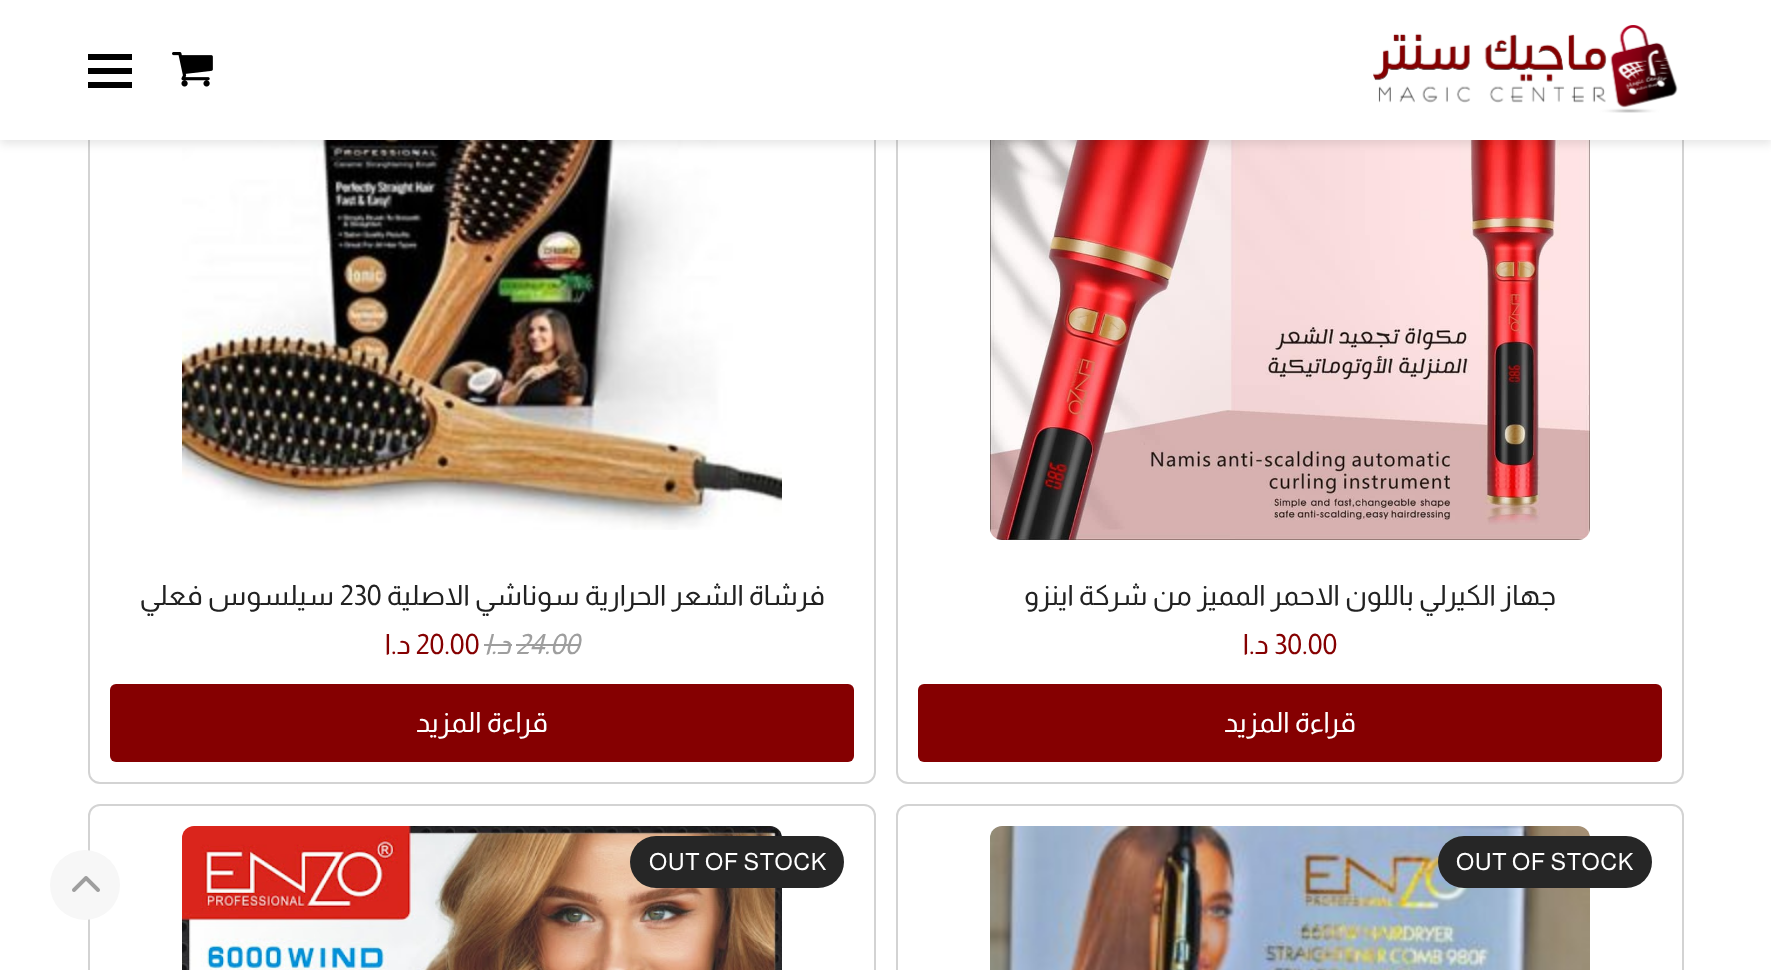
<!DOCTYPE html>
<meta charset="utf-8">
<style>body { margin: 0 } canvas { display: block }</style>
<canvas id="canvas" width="1771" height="970"></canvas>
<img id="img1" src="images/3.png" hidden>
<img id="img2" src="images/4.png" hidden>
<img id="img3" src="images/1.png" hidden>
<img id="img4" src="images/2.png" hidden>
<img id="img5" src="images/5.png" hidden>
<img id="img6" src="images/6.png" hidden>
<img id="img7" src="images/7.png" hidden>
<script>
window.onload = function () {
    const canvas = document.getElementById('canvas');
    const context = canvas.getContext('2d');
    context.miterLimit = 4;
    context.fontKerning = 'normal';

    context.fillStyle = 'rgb(255, 255, 255)';
    context.fillRect(0, 0, 1771, 970);
    context.beginPath();
    context.roundRect(897, -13, 786, 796, 11);
    context.strokeStyle = 'rgb(211, 211, 211)';
    context.lineWidth = 2;
    context.stroke();
    context.drawImage(document.getElementById('img1'), 990, 140, 600, 400);
    context.beginPath();
    context.roundRect(89, -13, 786, 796, 11);
    context.stroke();
    context.drawImage(document.getElementById('img2'), 182, 140, 600, 390);
    context.fillStyle = 'rgba(0, 0, 0, 0.1)';
    context.filter = 'blur(5px)';
    context.beginPath();
    context.rect(0, 4, 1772, 140);
    context.fill();
    context.filter = 'none';
    context.fillStyle = 'rgb(255, 255, 255)';
    context.fillRect(0, 0, 1771, 140);
    context.drawImage(document.getElementById('img3'), 1373, 25, 305, 88);
    context.drawImage(document.getElementById('img4'), 172, 52, 41, 35);
    context.fillStyle = 'rgb(0, 0, 0)';
    context.fillRect(88, 68, 44, 6);
    context.fillRect(88, 54, 44, 6);
    context.fillRect(88, 82, 44, 6);
    context.fillStyle = 'rgb(133, 0, 1)';
    context.beginPath();
    context.roundRect(918, 684, 744, 78, 6);
    context.fill();
    context.fillStyle = 'rgb(158, 158, 158)';
    context.fillRect(516, 644, 64, 2);
    context.fillRect(484, 644, 28, 2);
    context.fillStyle = 'rgb(133, 0, 1)';
    context.beginPath();
    context.roundRect(110, 684, 744, 78, 6);
    context.fill();
    context.beginPath();
    context.roundRect(897, 805, 786, 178, 11);
    context.stroke();
    context.drawImage(document.getElementById('img5'), 990, 826, 600, 144);
    context.fillStyle = 'rgb(38, 38, 38)';
    context.beginPath();
    context.roundRect(1438, 836, 214, 52, 26);
    context.fill();
    context.beginPath();
    context.roundRect(89, 805, 786, 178, 11);
    context.stroke();
    context.drawImage(document.getElementById('img6'), 182, 826, 600, 144);
    context.beginPath();
    context.roundRect(630, 836, 214, 52, 26);
    context.fill();
    context.fillStyle = 'rgb(247, 247, 247)';
    context.beginPath();
    context.arc(85, 885, 35, 0, 2 * Math.PI);
    context.fill();
    context.drawImage(document.getElementById('img7'), 72, 876, 28, 16);
    context.direction = 'rtl';
    context.font = '28px Almarai';
    context.fillStyle = 'rgb(34, 34, 34)';
    context.fillText('جهاز الكيرلي باللون الاحمر المميز من شركة اينزو', 1556, 605);
    context.direction = 'ltr';
    context.fillStyle = 'rgb(133, 0, 1)';
    context.fillText('30.00', 1274, 654);
    context.direction = 'rtl';
    context.fillText('د.ا', 1269, 654);
    context.fillStyle = 'rgb(255, 255, 255)';
    context.fillText('قراءة المزيد', 1356, 732);
    context.fillStyle = 'rgb(34, 34, 34)';
    context.fillText('فرشاة الشعر الحرارية سوناشي الاصلية', 825, 605);
    context.direction = 'ltr';
    context.fillText('230', 340, 605);
    context.direction = 'rtl';
    context.fillText('سيلسوس فعلي', 334, 605);
    context.direction = 'ltr';
    context.font = 'italic 28px Almarai';
    context.fillStyle = 'rgb(158, 158, 158)';
    context.fillText('24.00', 516, 654);
    context.direction = 'rtl';
    context.fillText('د.ا', 511, 654);
    context.direction = 'ltr';
    context.font = '28px Almarai';
    context.fillStyle = 'rgb(133, 0, 1)';
    context.fillText('20.00', 416, 654);
    context.direction = 'rtl';
    context.fillText('د.ا', 411, 654);
    context.fillStyle = 'rgb(255, 255, 255)';
    context.fillText('قراءة المزيد', 548, 732);
    context.letterSpacing = '0.6px';
    context.direction = 'ltr';
    context.font = '23.75px Almarai';
    context.fillText('OUT OF STOCK', 1456, 870);
    context.fillText('OUT OF STOCK', 649, 870);
};
</script>
